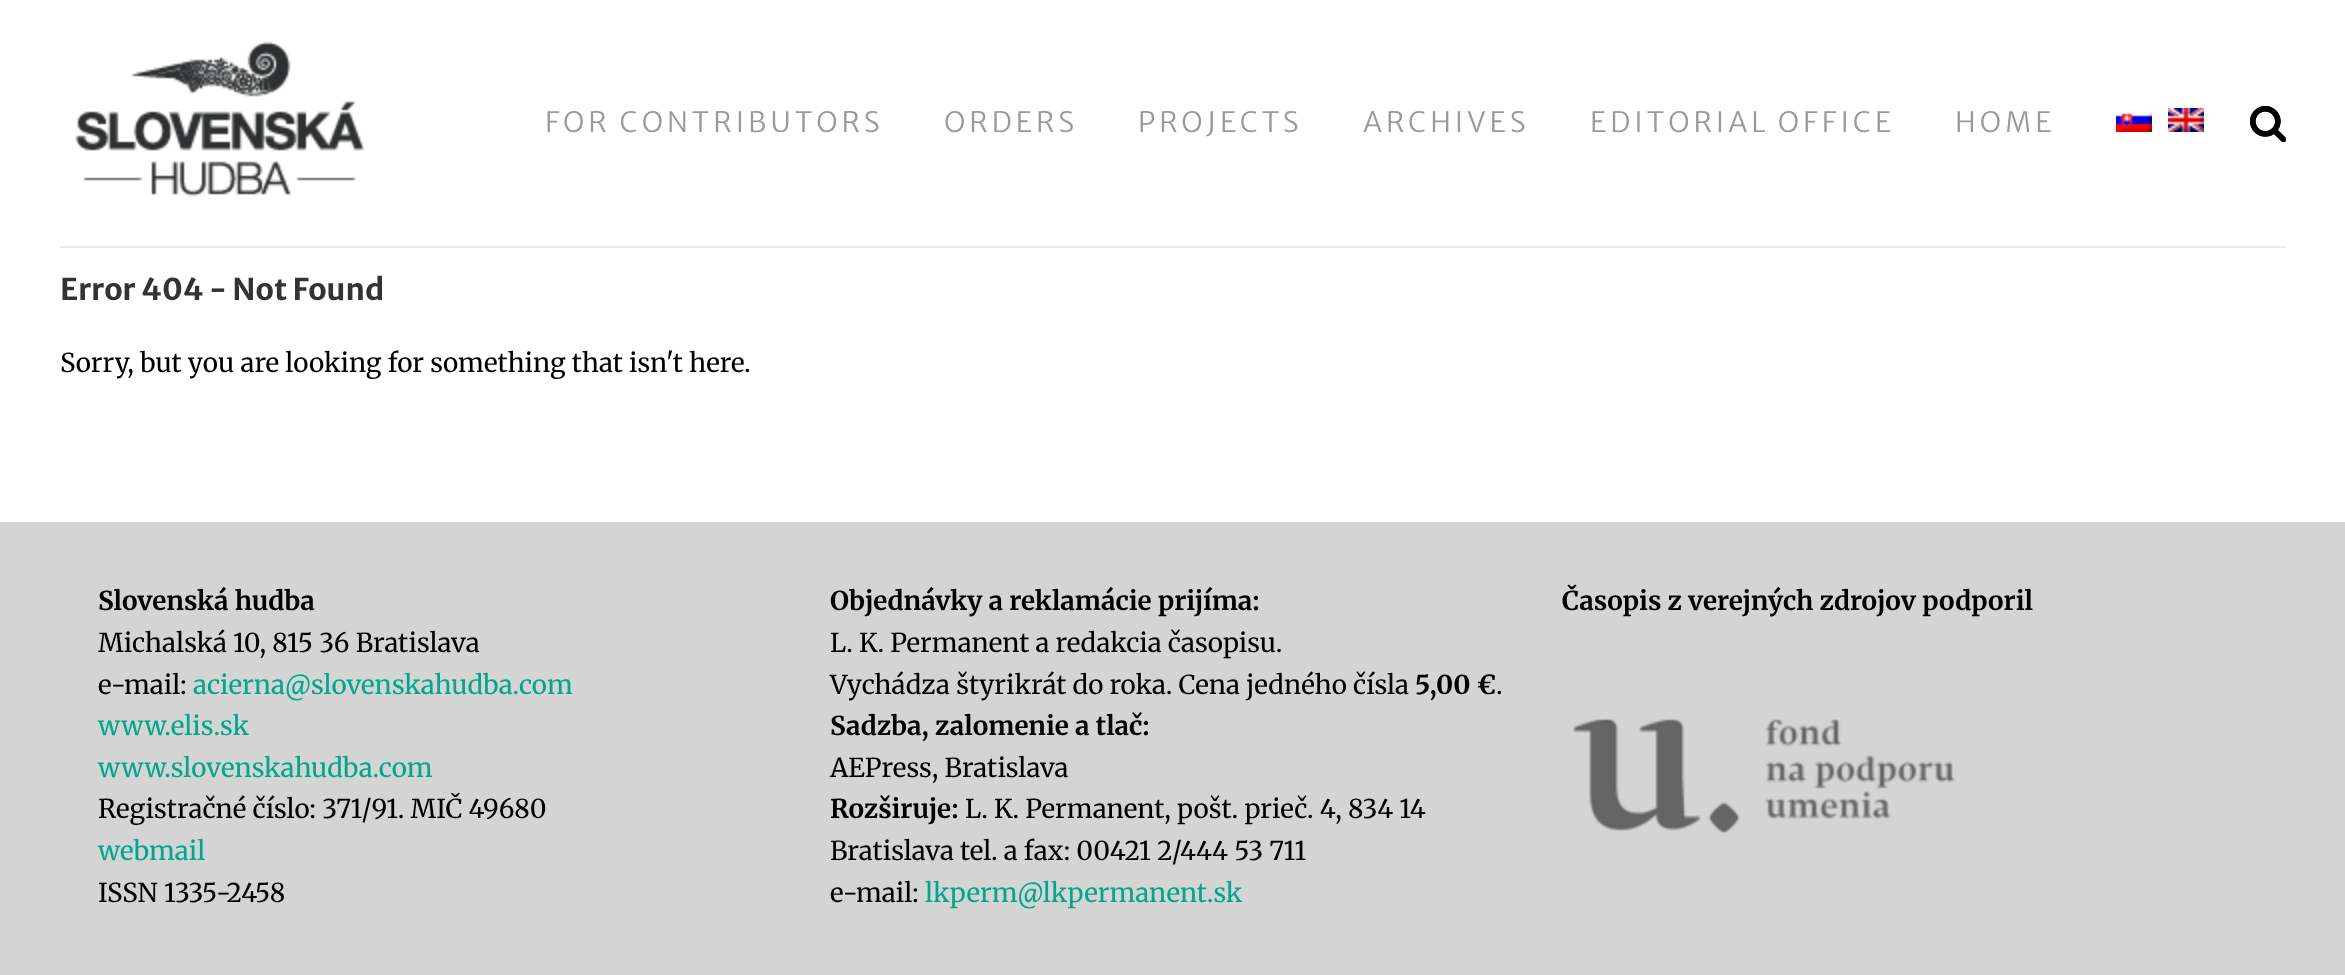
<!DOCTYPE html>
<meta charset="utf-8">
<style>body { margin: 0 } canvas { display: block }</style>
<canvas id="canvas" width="2345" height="975"></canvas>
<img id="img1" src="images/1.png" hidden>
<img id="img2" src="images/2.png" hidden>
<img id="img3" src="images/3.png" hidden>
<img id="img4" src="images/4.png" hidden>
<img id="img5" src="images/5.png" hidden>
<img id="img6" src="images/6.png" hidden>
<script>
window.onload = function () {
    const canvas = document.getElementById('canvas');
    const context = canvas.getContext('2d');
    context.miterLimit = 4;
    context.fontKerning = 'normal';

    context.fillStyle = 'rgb(255, 255, 255)';
    context.fillRect(0, 0, 2345, 975);
    context.fillStyle = 'rgb(235, 235, 235)';
    context.fillRect(60, 246, 2226, 2);
    context.drawImage(document.getElementById('img1'), 75, 41, 290, 156);
    context.drawImage(document.getElementById('img2'), 2116, 111, 36, 21);
    context.drawImage(document.getElementById('img3'), 2168, 108, 36, 24);
    context.drawImage(document.getElementById('img4'), 2250, 106, 36, 36);
    context.drawImage(document.getElementById('img5'), 2250, 106, 36, 36);
    context.fillStyle = 'rgb(212, 212, 212)';
    context.fillRect(0, 522, 2345, 453);
    context.drawImage(document.getElementById('img6'), 1573, 718, 382, 115);
    context.letterSpacing = '4px';
    context.font = '300 28px Merriweather Sans';
    context.fillStyle = 'rgb(153, 153, 153)';
    context.fillText('FOR CONTRIBUTORS', 545, 132);
    context.fillText('ORDERS', 944, 132);
    context.fillText('PROJECTS', 1138, 132);
    context.fillText('ARCHIVES', 1363, 132);
    context.fillText('EDITORIAL OFFICE', 1590, 132);
    context.fillText('HOME', 1955, 132);
    context.letterSpacing = '0px';
    context.font = 'bold 30px Merriweather Sans';
    context.fillStyle = 'rgb(51, 51, 51)';
    context.fillText('Error 404 - Not Found', 60, 300);
    context.font = '26px Merriweather';
    context.fillStyle = 'rgb(0, 0, 0)';
    context.fillText('Sorry, but you are looking for something that isn\'t here.', 60, 372);
    context.font = 'bold 26px Merriweather';
    context.fillText('Slovenská hudba', 98, 610);
    context.font = '26px Merriweather';
    context.fillText('Michalská 10, 815 36 Bratislava', 98, 652);
    context.fillText('e-mail:', 98, 694);
    context.fillStyle = 'rgb(0, 167, 141)';
    context.fillText('acierna@slovenskahudba.com', 193, 694);
    context.fillText('www.elis.sk', 98, 735);
    context.fillText('www.slovenskahudba.com', 98, 777);
    context.fillStyle = 'rgb(0, 0, 0)';
    context.fillText('Registračné číslo: 371/91. MIČ 49680', 98, 818);
    context.fillStyle = 'rgb(0, 167, 141)';
    context.fillText('webmail', 98, 860);
    context.fillStyle = 'rgb(0, 0, 0)';
    context.fillText('ISSN 1335-2458', 98, 902);
    context.font = 'bold 26px Merriweather';
    context.fillText('Objednávky a reklamácie prijíma:', 830, 610);
    context.font = '26px Merriweather';
    context.fillText('L. K. Permanent a redakcia časopisu.', 830, 652);
    context.fillText('Vychádza štyrikrát do roka. Cena jedného čísla', 830, 694);
    context.font = 'bold 26px Merriweather';
    context.fillText('5,00 €', 1415, 694);
    context.font = '26px Merriweather';
    context.fillText('.', 1496, 694);
    context.font = 'bold 26px Merriweather';
    context.fillText('Sadzba, zalomenie a tlač:', 830, 735);
    context.font = '26px Merriweather';
    context.fillText('AEPress, Bratislava', 830, 777);
    context.font = 'bold 26px Merriweather';
    context.fillText('Rozširuje:', 830, 818);
    context.font = '26px Merriweather';
    context.fillText('L. K. Permanent, pošt. prieč. 4, 834 14', 965, 818);
    context.fillText('Bratislava tel. a fax: 00421 2/444 53 711', 830, 860);
    context.fillText('e-mail:', 830, 902);
    context.fillStyle = 'rgb(0, 167, 141)';
    context.fillText('lkperm@lkpermanent.sk', 925, 902);
    context.font = 'bold 26px Merriweather';
    context.fillStyle = 'rgb(0, 0, 0)';
    context.fillText('Časopis z verejných zdrojov podporil', 1562, 610);
};
</script>
